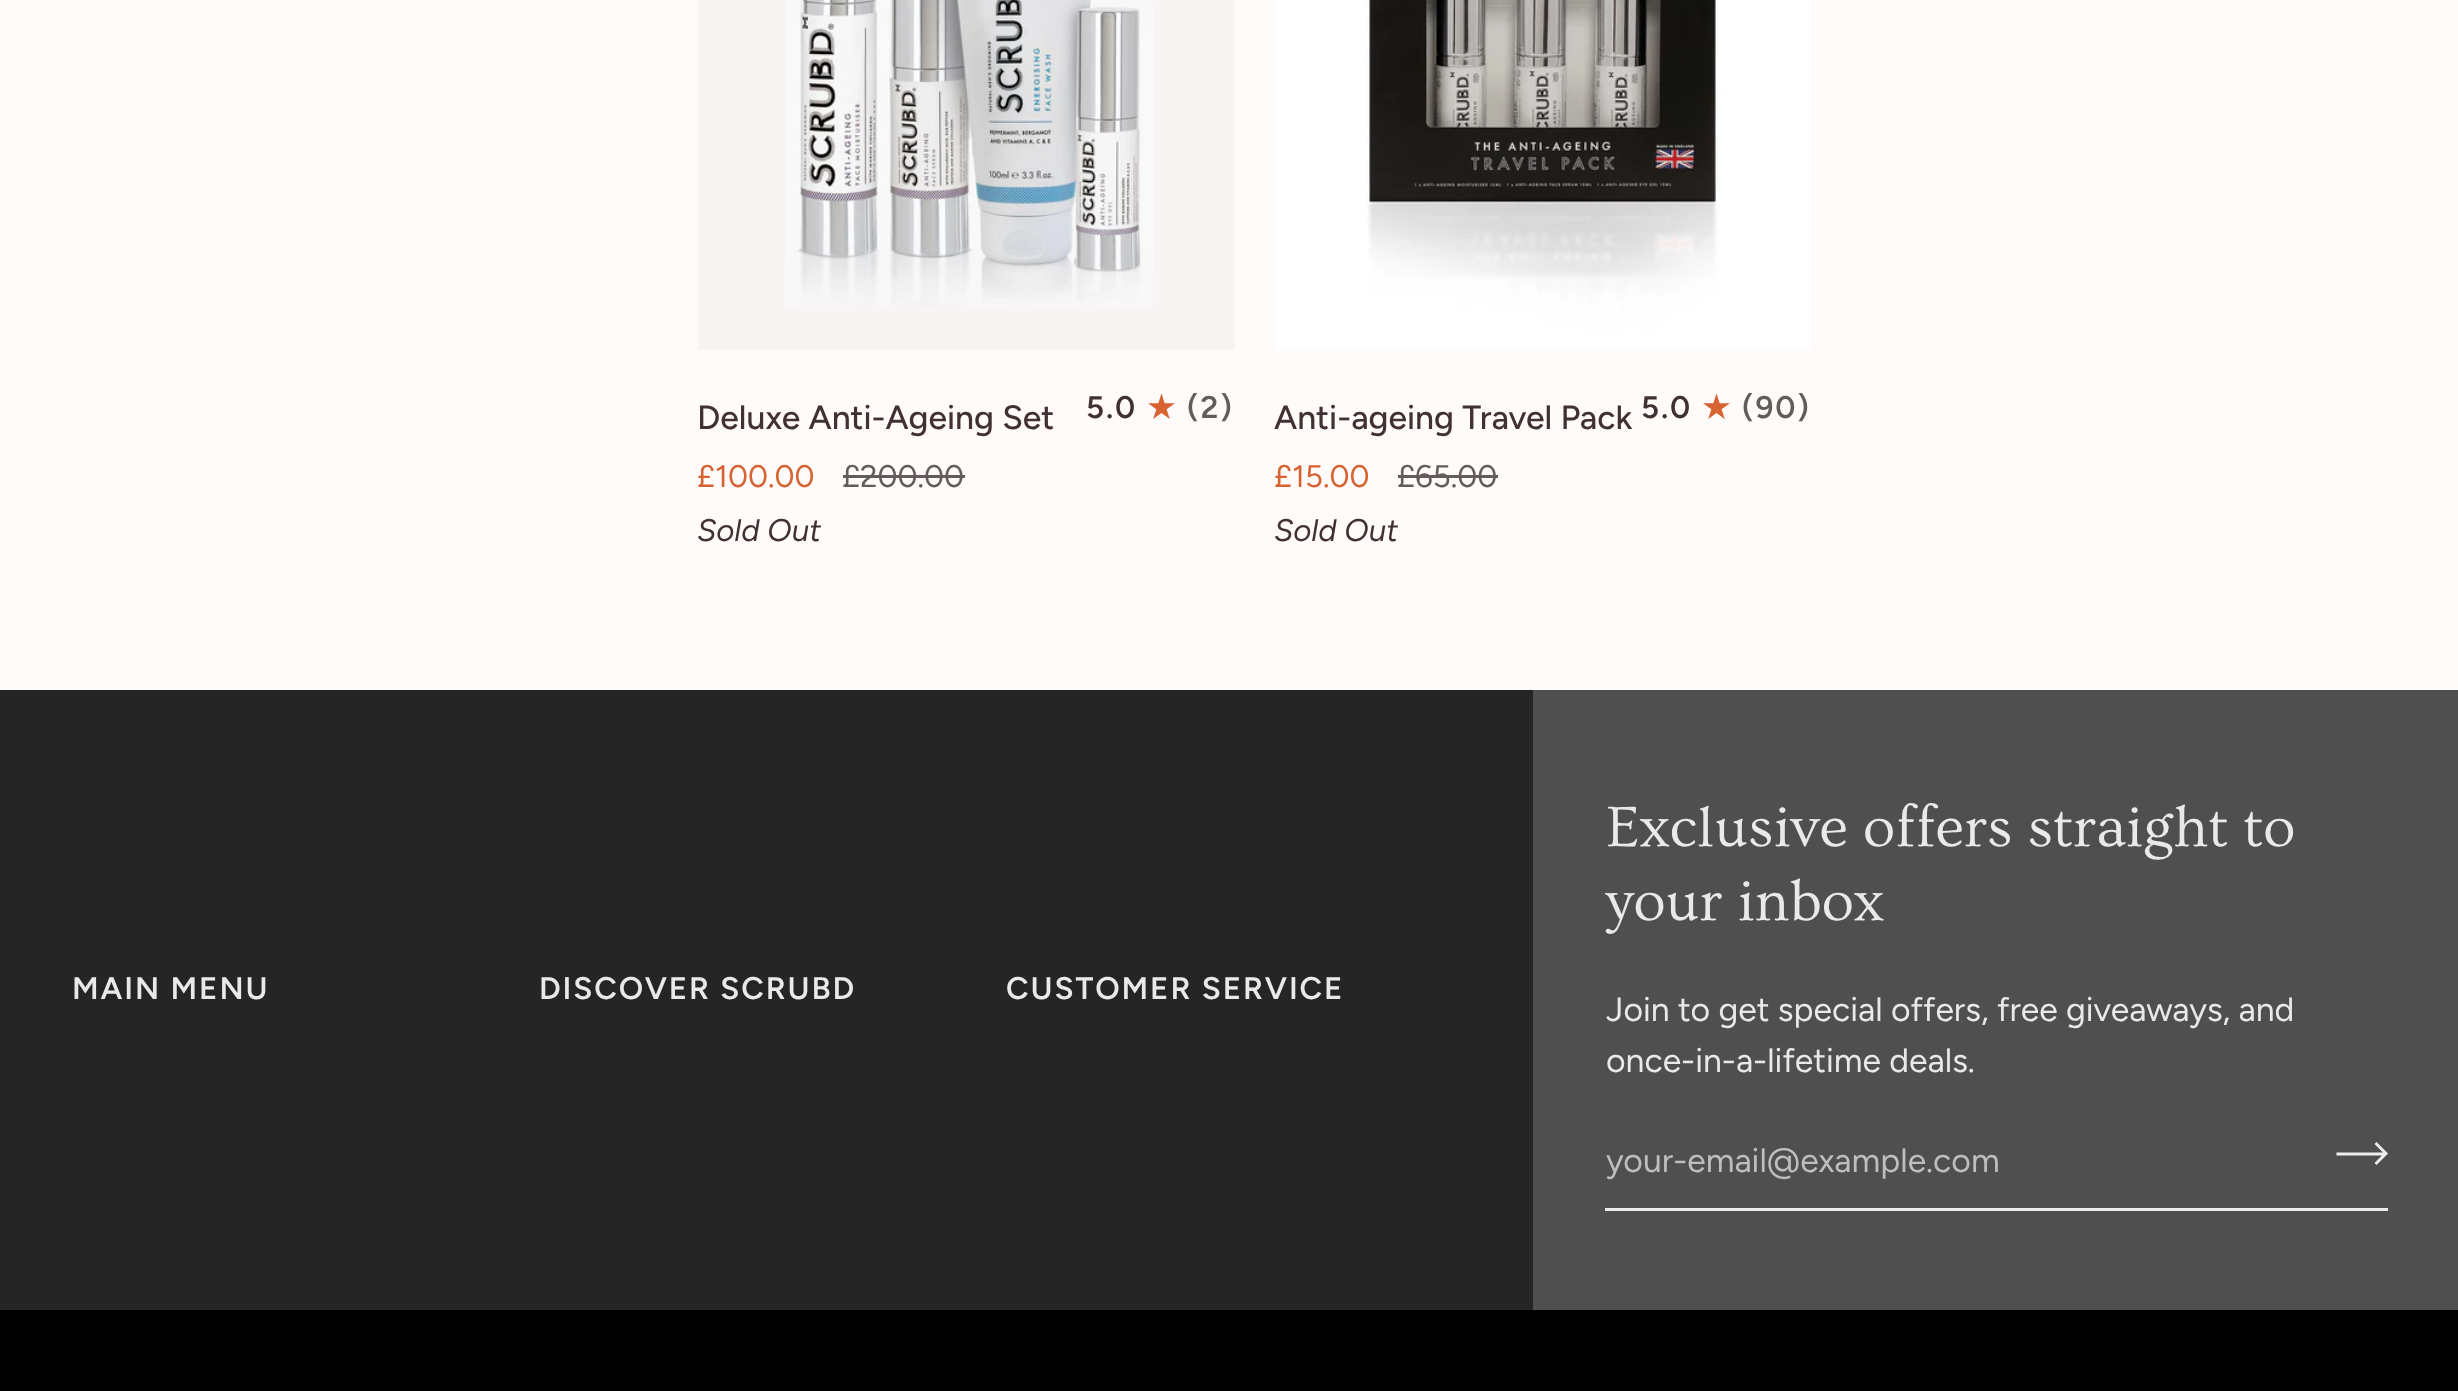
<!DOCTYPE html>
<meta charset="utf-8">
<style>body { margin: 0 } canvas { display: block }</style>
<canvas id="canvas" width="2458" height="1391"></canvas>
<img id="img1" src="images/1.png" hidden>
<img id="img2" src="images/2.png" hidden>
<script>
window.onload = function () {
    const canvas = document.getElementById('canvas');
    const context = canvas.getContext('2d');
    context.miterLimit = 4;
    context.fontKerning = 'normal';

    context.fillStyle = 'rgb(255, 251, 251)';
    context.fillRect(0, 0, 2458, 1391);
    context.fillStyle = 'rgb(248, 244, 244)';
    context.fillRect(698, 0, 537, 350);
    context.drawImage(document.getElementById('img1'), 785, 0, 368, 308);
    context.fillStyle = 'rgb(100, 92, 92)';
    context.fillRect(843, 475, 122, 3);
    context.drawImage(document.getElementById('img2'), 1275, 0, 535, 350);
    context.fillRect(1398, 475, 100, 3);
    context.fillStyle = 'rgb(37, 37, 37)';
    context.fillRect(0, 690, 1533, 620);
    context.fillStyle = 'rgb(79, 79, 79)';
    context.fillRect(1533, 690, 925, 620);
    context.fillStyle = 'rgb(237, 237, 237)';
    context.fillRect(1605, 1208, 783, 3);
    context.beginPath();
    context.moveTo(2375.5, 1143);
    context.lineTo(2386, 1153.5);
    context.lineTo(2375.5, 1164);
    context.moveTo(2336.5, 1154);
    context.lineTo(2386, 1154);
    context.strokeStyle = 'rgb(237, 237, 237)';
    context.lineWidth = 2.9;
    context.stroke();
    context.fillStyle = 'rgb(0, 0, 0)';
    context.fillRect(0, 1310, 2458, 81);
    context.font = '500 33.75px Figtree';
    context.fillStyle = 'rgb(66, 49, 49)';
    context.fillText('Deluxe Anti-Ageing Set', 697, 429);
    context.letterSpacing = '1.9px';
    context.font = '600 31.25px Figtree';
    context.fillText('5.0', 1086, 418);
    context.font = 'bold 31.25px DejaVu Sans';
    context.fillStyle = 'rgb(216, 99, 50)';
    context.fillText('★', 1147, 418);
    context.font = '600 31.25px Figtree';
    context.fillStyle = 'rgb(100, 92, 92)';
    context.fillText('(2)', 1187, 418);
    context.letterSpacing = '0px';
    context.font = '31.25px Figtree';
    context.fillStyle = 'rgb(216, 99, 50)';
    context.fillText('£100.00', 697, 487);
    context.fillStyle = 'rgb(100, 92, 92)';
    context.fillText('£200.00', 842, 487);
    context.font = 'italic 31.25px Figtree';
    context.fillStyle = 'rgb(66, 49, 49)';
    context.fillText('Sold Out', 697, 541);
    context.font = '500 33.75px Figtree';
    context.fillText('Anti-ageing Travel Pack', 1274, 429);
    context.letterSpacing = '1.9px';
    context.font = '600 31.25px Figtree';
    context.fillText('5.0', 1641, 418);
    context.font = 'bold 31.25px DejaVu Sans';
    context.fillStyle = 'rgb(216, 99, 50)';
    context.fillText('★', 1702, 418);
    context.font = '600 31.25px Figtree';
    context.fillStyle = 'rgb(100, 92, 92)';
    context.fillText('(90)', 1742, 418);
    context.letterSpacing = '0px';
    context.font = '31.25px Figtree';
    context.fillStyle = 'rgb(216, 99, 50)';
    context.fillText('£15.00', 1274, 487);
    context.fillStyle = 'rgb(100, 92, 92)';
    context.fillText('£65.00', 1397, 487);
    context.font = 'italic 31.25px Figtree';
    context.fillStyle = 'rgb(66, 49, 49)';
    context.fillText('Sold Out', 1274, 541);
    context.letterSpacing = '1.9px';
    context.font = '600 31.25px Figtree';
    context.fillStyle = 'rgb(233, 233, 233)';
    context.fillText('MAIN MENU', 72, 999);
    context.fillText('DISCOVER SCRUBD', 539, 999);
    context.fillText('CUSTOMER SERVICE', 1006, 999);
    context.letterSpacing = '0px';
    context.font = '59.4px Ovo';
    context.fillText('Exclusive offers straight to', 1606, 846);
    context.fillText('your inbox', 1606, 920);
    context.font = '33.75px Figtree';
    context.fillText('Join to get special offers, free giveaways, and', 1606, 1021);
    context.fillText('once-in-a-lifetime deals.', 1606, 1072);
    context.fillStyle = 'rgb(190, 190, 190)';
    context.fillText('your-email@example.com', 1606, 1172);
};
</script>
